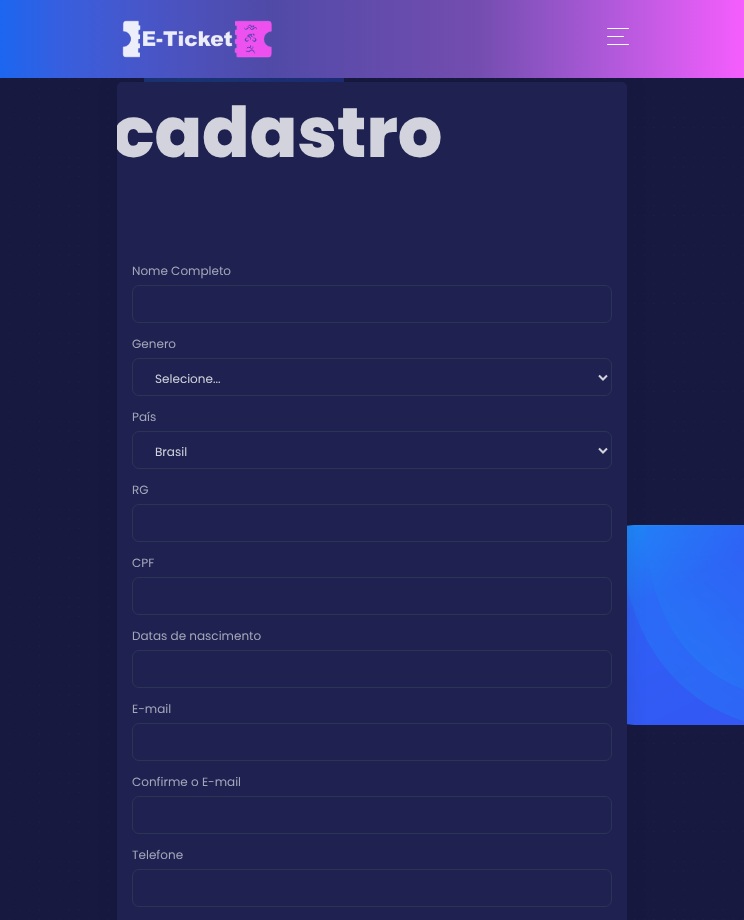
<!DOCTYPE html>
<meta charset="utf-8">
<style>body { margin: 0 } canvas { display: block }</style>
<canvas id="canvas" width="744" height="920"></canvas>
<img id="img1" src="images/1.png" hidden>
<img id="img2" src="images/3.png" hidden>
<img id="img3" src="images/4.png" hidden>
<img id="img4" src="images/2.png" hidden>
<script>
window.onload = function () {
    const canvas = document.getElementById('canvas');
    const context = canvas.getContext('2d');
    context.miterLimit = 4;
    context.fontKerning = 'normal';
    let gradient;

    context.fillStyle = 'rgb(23, 25, 65)';
    context.fillRect(0, 0, 744, 920);
    context.drawImage(document.getElementById('img1'), 9, 78, 735, 842);
    context.drawImage(document.getElementById('img2'), 144, 78, 200, 4);
    context.drawImage(document.getElementById('img3'), 627, 525, 117, 200);
    context.fillStyle = 'rgba(0, 0, 0, 0.1)';
    context.filter = 'blur(10px)';
    context.beginPath();
    context.roundRect(117, 83, 510, 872, 5);
    context.fill();
    context.filter = 'none';
    gradient = context.createLinearGradient(0, 39, 744, 39);
    gradient.addColorStop(0, 'rgb(28, 102, 240)');
    gradient.addColorStop(0.09, 'rgb(57, 94, 221)');
    gradient.addColorStop(0.18, 'rgb(70, 87, 203)');
    gradient.addColorStop(0.27, 'rgb(77, 80, 185)');
    gradient.addColorStop(0.36, 'rgb(80, 74, 167)');
    gradient.addColorStop(0.45, 'rgb(92, 75, 170)');
    gradient.addColorStop(0.55, 'rgb(104, 76, 173)');
    gradient.addColorStop(0.64, 'rgb(115, 77, 175)');
    gradient.addColorStop(0.73, 'rgb(144, 84, 197)');
    gradient.addColorStop(0.82, 'rgb(176, 89, 218)');
    gradient.addColorStop(0.91, 'rgb(210, 92, 236)');
    gradient.addColorStop(1, 'rgb(246, 93, 253)');
    context.fillStyle = gradient;
    context.fillRect(0, 0, 744, 78);
    context.drawImage(document.getElementById('img4'), 122, 20, 150, 38);
    context.fillStyle = 'rgb(255, 255, 255)';
    context.beginPath();
    context.roundRect(607, 28, 22, 1, 0.5);
    context.fill();
    context.beginPath();
    context.roundRect(607, 36, 17, 1, 0.5);
    context.fill();
    context.beginPath();
    context.roundRect(607, 44, 22, 1, 0.5);
    context.fill();
    context.fillStyle = 'rgb(31, 34, 81)';
    context.beginPath();
    context.roundRect(117, 82, 510, 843, 5);
    context.fill();
    context.beginPath();
    context.roundRect(132.5, 285.5, 479, 37, 6.5);
    context.strokeStyle = 'rgb(43, 53, 83)';
    context.stroke();
    context.beginPath();
    context.roundRect(132.5, 358.5, 479, 37, 6.5);
    context.stroke();
    context.beginPath();
    context.moveTo(599, 375.5);
    context.lineTo(603, 379.5);
    context.lineTo(607, 375.5);
    context.strokeStyle = 'rgb(210, 211, 220)';
    context.lineWidth = 2;
    context.stroke();
    context.beginPath();
    context.roundRect(132.5, 431.5, 479, 37, 6.5);
    context.strokeStyle = 'rgb(43, 53, 83)';
    context.lineWidth = 1;
    context.stroke();
    context.beginPath();
    context.moveTo(599, 448.5);
    context.lineTo(603, 452.5);
    context.lineTo(607, 448.5);
    context.strokeStyle = 'rgb(210, 211, 220)';
    context.lineWidth = 2;
    context.stroke();
    context.beginPath();
    context.roundRect(132.5, 504.5, 479, 37, 6.5);
    context.strokeStyle = 'rgb(43, 53, 83)';
    context.lineWidth = 1;
    context.stroke();
    context.beginPath();
    context.roundRect(132.5, 577.5, 479, 37, 6.5);
    context.stroke();
    context.beginPath();
    context.roundRect(132.5, 650.5, 479, 37, 6.5);
    context.stroke();
    context.beginPath();
    context.roundRect(132.5, 723.5, 479, 37, 6.5);
    context.stroke();
    context.beginPath();
    context.roundRect(132.5, 796.5, 479, 37, 6.5);
    context.stroke();
    context.beginPath();
    context.roundRect(132.5, 869.5, 479, 37, 6.5);
    context.stroke();
    context.save();
    context.beginPath();
    context.roundRect(117, 82, 510, 163, [4, 4, 0, 0]);
    context.clip();
    context.font = '800 70px Poppins';
    context.fillStyle = 'rgb(210, 211, 220)';
    context.fillText('cadastro', 112, 157);
    context.restore();
    context.font = '12px Poppins';
    context.fillStyle = 'rgb(165, 167, 185)';
    context.fillText('Nome Completo', 132, 275);
    context.fillText('Genero', 132, 348);
    context.fillStyle = 'rgb(210, 211, 220)';
    context.fillText('Selecione...', 155, 383);
    context.fillStyle = 'rgb(165, 167, 185)';
    context.fillText('País', 132, 421);
    context.fillStyle = 'rgb(210, 211, 220)';
    context.fillText('Brasil', 155, 456);
    context.fillStyle = 'rgb(165, 167, 185)';
    context.fillText('RG', 132, 494);
    context.fillText('CPF', 132, 567);
    context.fillText('Datas de nascimento', 132, 640);
    context.fillText('E-mail', 132, 713);
    context.fillText('Confirme o E-mail', 132, 786);
    context.fillText('Telefone', 132, 859);
};
</script>
